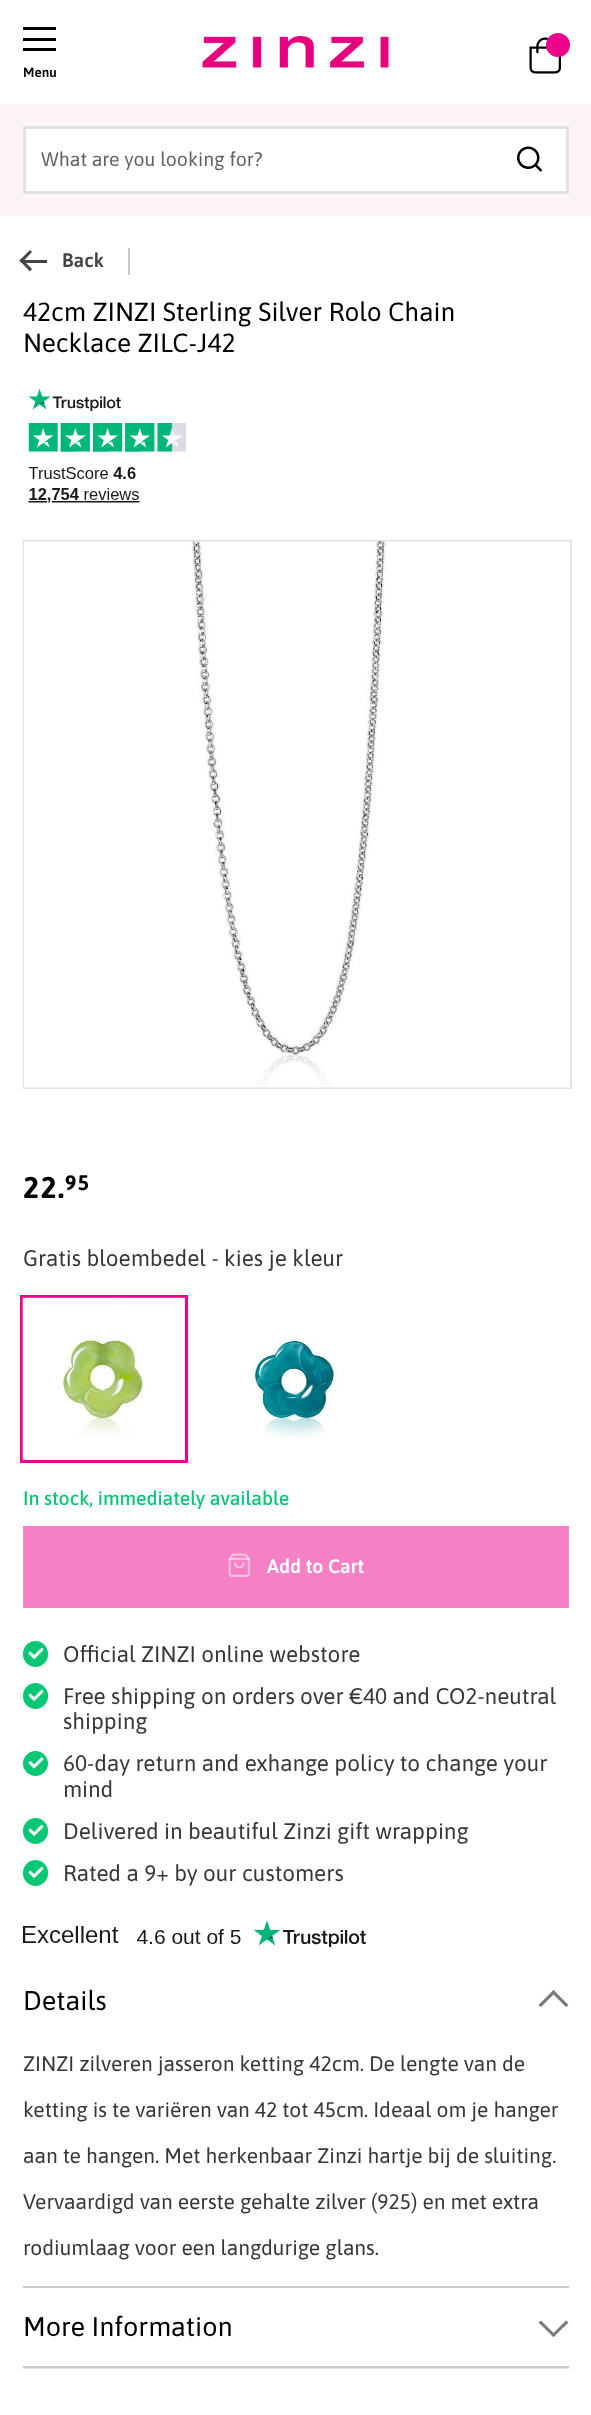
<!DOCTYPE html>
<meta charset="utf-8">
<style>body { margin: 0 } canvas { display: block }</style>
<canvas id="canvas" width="591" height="2415"></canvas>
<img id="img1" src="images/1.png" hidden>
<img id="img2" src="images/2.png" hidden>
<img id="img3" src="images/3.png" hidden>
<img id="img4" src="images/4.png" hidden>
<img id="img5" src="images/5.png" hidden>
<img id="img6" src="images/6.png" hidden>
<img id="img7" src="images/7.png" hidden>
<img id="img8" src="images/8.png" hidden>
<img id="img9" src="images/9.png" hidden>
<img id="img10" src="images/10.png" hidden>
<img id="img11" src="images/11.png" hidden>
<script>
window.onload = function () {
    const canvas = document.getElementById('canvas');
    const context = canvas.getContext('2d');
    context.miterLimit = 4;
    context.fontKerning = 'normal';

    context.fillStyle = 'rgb(255, 255, 255)';
    context.fillRect(0, 0, 591, 2415);
    context.drawImage(document.getElementById('img1'), 202, 36, 187, 32);
    context.drawImage(document.getElementById('img2'), 529, 37, 32, 37);
    context.fillStyle = 'rgb(236, 0, 140)';
    context.beginPath();
    context.arc(558, 45, 12, 0, 2 * Math.PI);
    context.fill();
    context.fillStyle = 'rgb(0, 0, 0)';
    context.fillRect(23, 38, 33, 3);
    context.fillRect(23, 27, 33, 3);
    context.fillRect(23, 48, 33, 3);
    context.fillStyle = 'rgb(252, 243, 249)';
    context.fillRect(0, 104, 591, 112);
    context.fillStyle = 'rgb(255, 255, 255)';
    context.beginPath();
    context.rect(24.5, 127.5, 543, 65);
    context.fill();
    context.strokeStyle = 'rgb(225, 225, 225)';
    context.lineWidth = 3;
    context.stroke();
    context.drawImage(document.getElementById('img3'), 517, 146, 25, 26);
    context.fillStyle = 'rgb(68, 68, 68)';
    context.fillRect(23, 260, 24, 3);
    context.beginPath();
    context.moveTo(30, 271.5);
    context.lineTo(19.5, 260.5);
    context.lineTo(21.5, 258.5);
    context.lineTo(32, 269);
    context.closePath();
    context.fill();
    context.beginPath();
    context.moveTo(21.5, 263);
    context.lineTo(19.5, 260.5);
    context.lineTo(30, 250);
    context.lineTo(32, 252);
    context.closePath();
    context.fill();
    context.fillStyle = 'rgb(199, 199, 199)';
    context.fillRect(128, 248, 2, 27);
    context.drawImage(document.getElementById('img4'), 28, 389, 158, 114);
    context.lineWidth = 2;
    context.strokeRect(24, 541, 547, 547);
    context.drawImage(document.getElementById('img5'), 24, 541, 546, 547);
    context.strokeStyle = 'rgb(236, 0, 140)';
    context.lineWidth = 3;
    context.strokeRect(21.5, 1296.5, 165, 165);
    context.drawImage(document.getElementById('img6'), 22, 1297, 163, 163);
    context.drawImage(document.getElementById('img7'), 248, 1339, 91, 100);
    context.fillStyle = 'rgb(246, 128, 198)';
    context.fillRect(23, 1526, 546, 82);
    context.drawImage(document.getElementById('img8'), 228, 1553, 22, 24);
    context.fillStyle = 'rgb(7, 199, 117)';
    context.beginPath();
    context.roundRect(23, 1641, 25, 26, 12.5);
    context.fill();
    context.drawImage(document.getElementById('img9'), 28, 1647, 16, 12);
    context.beginPath();
    context.roundRect(23, 1683, 25, 26, 12.5);
    context.fill();
    context.drawImage(document.getElementById('img9'), 28, 1689, 16, 12);
    context.beginPath();
    context.arc(35.5, 1763.5, 12.5, 0, 2 * Math.PI);
    context.fill();
    context.drawImage(document.getElementById('img10'), 28, 1757, 16, 12);
    context.beginPath();
    context.roundRect(23, 1818, 25, 26, 12.5);
    context.fill();
    context.drawImage(document.getElementById('img9'), 28, 1824, 16, 12);
    context.beginPath();
    context.roundRect(23, 1860, 25, 26, 12.5);
    context.fill();
    context.drawImage(document.getElementById('img9'), 28, 1866, 16, 12);
    context.drawImage(document.getElementById('img11'), 22, 1920, 344, 27);
    context.fillStyle = 'rgb(225, 225, 225)';
    context.fillRect(23, 2368, 546, 1);
    context.fillStyle = 'rgb(122, 122, 122)';
    context.beginPath();
    context.moveTo(541, 2007);
    context.lineTo(538.5, 2005);
    context.lineTo(553.5, 1990);
    context.lineTo(555.5, 1992.5);
    context.closePath();
    context.fill();
    context.beginPath();
    context.moveTo(566, 2007);
    context.lineTo(551.5, 1992.5);
    context.lineTo(553.5, 1990);
    context.lineTo(568.5, 2005);
    context.closePath();
    context.fill();
    context.fillStyle = 'rgb(204, 204, 204)';
    context.fillRect(23, 2286, 546, 2);
    context.fillRect(23, 2366, 546, 2);
    context.fillStyle = 'rgb(122, 122, 122)';
    context.beginPath();
    context.moveTo(566, 2320.5);
    context.lineTo(568.5, 2322.5);
    context.lineTo(553.5, 2337);
    context.lineTo(551.5, 2335);
    context.closePath();
    context.fill();
    context.beginPath();
    context.moveTo(541, 2320.5);
    context.lineTo(555.5, 2335);
    context.lineTo(553.5, 2337);
    context.lineTo(538.5, 2322.5);
    context.closePath();
    context.fill();
    context.font = '600 13.5px Asap';
    context.fillStyle = 'rgb(0, 0, 0)';
    context.fillText('Menu', 23, 77);
    context.font = '19.5px Asap';
    context.fillStyle = 'rgb(98, 98, 98)';
    context.fillText('What are you looking for?', 41, 166);
    context.font = '600 19.5px Asap';
    context.fillStyle = 'rgb(68, 68, 68)';
    context.fillText('Back', 62, 267);
    context.font = '26.25px Asap';
    context.fillStyle = 'rgb(0, 0, 0)';
    context.fillText('42cm ZINZI Sterling Silver Rolo Chain', 23, 321);
    context.fillText('Necklace ZILC-J42', 23, 352);
    context.letterSpacing = '1.5px';
    context.font = 'bold 30px Asap';
    context.fillText('22.', 23, 1198);
    context.font = 'bold 21px Asap';
    context.fillText('95', 65, 1190);
    context.letterSpacing = '0px';
    context.font = '22.5px Asap';
    context.fillStyle = 'rgb(55, 55, 55)';
    context.fillText('Gratis bloembedel - kies je kleur', 23, 1266);
    context.font = '500 19.5px Asap';
    context.fillStyle = 'rgb(7, 199, 117)';
    context.fillText('In stock, immediately available', 23, 1505);
    context.font = '600 19.5px Asap';
    context.fillStyle = 'rgb(255, 255, 255)';
    context.fillText('Add to Cart', 267, 1573);
    context.font = '22.5px Asap';
    context.fillStyle = 'rgb(55, 55, 55)';
    context.fillText('Official ZINZI online webstore', 63, 1662);
    context.fillText('Free shipping on orders over €40 and CO2-neutral', 63, 1704);
    context.fillText('shipping', 63, 1729);
    context.fillText('60-day return and exhange policy to change your', 63, 1771);
    context.fillText('mind', 63, 1797);
    context.fillText('Delivered in beautiful Zinzi gift wrapping', 63, 1839);
    context.fillText('Rated a 9+ by our customers', 63, 1881);
    context.font = '27px Asap';
    context.fillStyle = 'rgb(0, 0, 0)';
    context.fillText('Details', 23, 2010);
    context.font = '21px Asap';
    context.fillStyle = 'rgb(55, 55, 55)';
    context.fillText('ZINZI zilveren jasseron ketting 42cm. De lengte van de', 23, 2071);
    context.fillText('ketting is te variëren van 42 tot 45cm. Ideaal om je hanger', 23, 2117);
    context.fillText('aan te hangen. Met herkenbaar Zinzi hartje bij de sluiting.', 23, 2163);
    context.fillText('Vervaardigd van eerste gehalte zilver (925) en met extra', 23, 2209);
    context.fillText('rodiumlaag voor een langdurige glans.', 23, 2255);
    context.font = '27px Asap';
    context.fillStyle = 'rgb(0, 0, 0)';
    context.fillText('More Information', 23, 2336);
};
</script>
